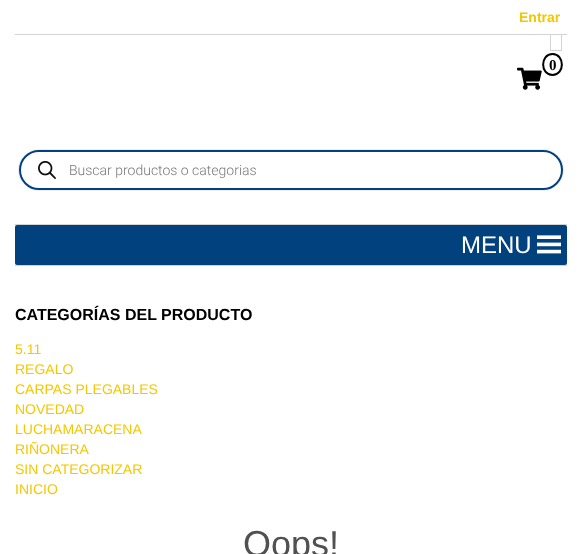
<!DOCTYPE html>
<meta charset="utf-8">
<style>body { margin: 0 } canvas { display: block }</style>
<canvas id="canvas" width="582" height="554"></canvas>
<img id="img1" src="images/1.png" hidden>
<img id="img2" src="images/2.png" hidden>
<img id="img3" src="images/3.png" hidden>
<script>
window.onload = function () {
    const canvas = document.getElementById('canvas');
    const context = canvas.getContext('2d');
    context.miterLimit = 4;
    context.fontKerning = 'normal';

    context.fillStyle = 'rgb(255, 255, 255)';
    context.fillRect(0, 0, 582, 554);
    context.fillStyle = 'rgb(211, 211, 211)';
    context.fillRect(15, 34, 552, 1);
    context.fillRect(15, 224, 552, 1);
    context.fillRect(561, 35, 1, 16);
    context.fillRect(550, 50, 12, 1);
    context.fillRect(550, 35, 1, 16);
    context.beginPath();
    context.moveTo(552.5, 54);
    context.bezierCurveTo(565, 54, 565, 75, 552.5, 75);
    context.bezierCurveTo(540, 75, 540, 54, 552.5, 54);
    context.closePath();
    context.strokeStyle = 'rgb(0, 0, 0)';
    context.lineWidth = 2;
    context.stroke();
    context.drawImage(document.getElementById('img1'), 517, 67, 25, 23);
    context.beginPath();
    context.roundRect(18.5, 149.5, 545, 41, 20.5);
    context.strokeStyle = 'rgb(238, 238, 238)';
    context.lineWidth = 1;
    context.stroke();
    context.fillStyle = 'rgb(255, 255, 255)';
    context.beginPath();
    context.roundRect(20, 151, 542, 38, 19);
    context.fill();
    context.strokeStyle = 'rgb(0, 65, 126)';
    context.lineWidth = 2;
    context.stroke();
    context.drawImage(document.getElementById('img2'), 38, 161, 18, 18);
    context.fillStyle = 'rgb(211, 211, 211)';
    context.fillRect(15, 265, 552, 1);
    context.fillStyle = 'rgb(0, 65, 126)';
    context.beginPath();
    context.roundRect(15, 225, 552, 40, 2);
    context.fill();
    context.drawImage(document.getElementById('img3'), 537, 235, 24, 19);
    context.font = 'bold 14px Liberation Sans';
    context.fillStyle = 'rgb(244, 199, 0)';
    context.fillText('Entrar', 519, 22);
    context.font = 'bold 15px Liberation Serif';
    context.fillStyle = 'rgb(0, 0, 0)';
    context.fillText('0', 549, 70);
    context.font = '300 14px Roboto';
    context.fillStyle = 'rgb(119, 119, 119)';
    context.fillText('Buscar productos o categorias', 69, 175);
    context.font = '24px Liberation Sans';
    context.fillStyle = 'rgb(255, 255, 255)';
    context.fillText('MENU', 461, 253);
    context.font = 'bold 16px Liberation Sans';
    context.fillStyle = 'rgb(0, 0, 0)';
    context.fillText('CATEGORÍAS DEL PRODUCTO', 15, 320);
    context.font = '14px Liberation Sans';
    context.fillStyle = 'rgb(244, 199, 0)';
    context.fillText('5.11', 15, 354);
    context.fillText('REGALO', 15, 374);
    context.fillText('CARPAS PLEGABLES', 15, 394);
    context.fillText('NOVEDAD', 15, 414);
    context.fillText('LUCHAMARACENA', 15, 434);
    context.fillText('RIÑONERA', 15, 454);
    context.fillText('SIN CATEGORIZAR', 15, 474);
    context.fillText('INICIO', 15, 494);
    context.font = '36px Liberation Sans';
    context.fillStyle = 'rgb(81, 81, 81)';
    context.fillText('Oops!', 243, 556);
};
</script>
